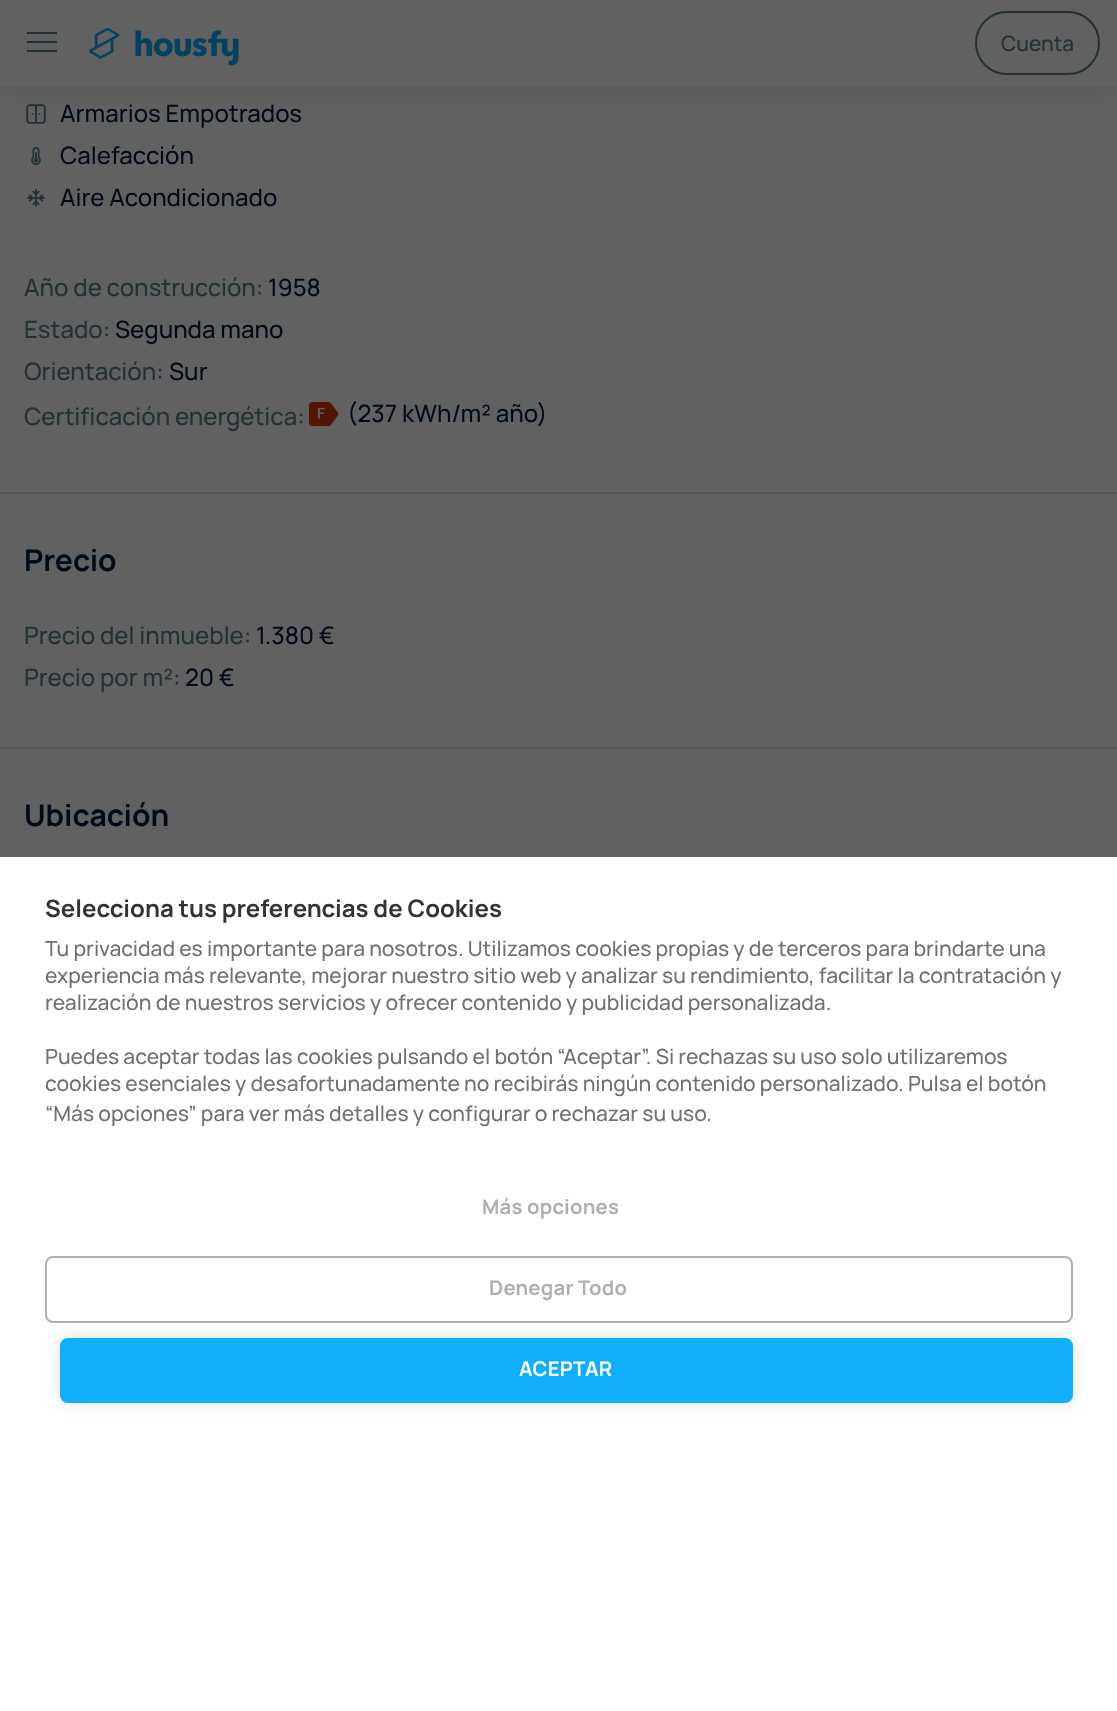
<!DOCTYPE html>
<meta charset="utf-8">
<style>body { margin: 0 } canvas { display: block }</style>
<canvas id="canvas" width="1117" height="1711"></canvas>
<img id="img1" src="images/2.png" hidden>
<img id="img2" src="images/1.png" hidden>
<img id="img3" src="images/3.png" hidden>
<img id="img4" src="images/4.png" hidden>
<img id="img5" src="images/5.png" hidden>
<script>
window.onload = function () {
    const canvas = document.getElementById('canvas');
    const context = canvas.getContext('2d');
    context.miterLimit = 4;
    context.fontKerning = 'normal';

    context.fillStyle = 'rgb(97, 97, 97)';
    context.fillRect(0, 0, 1117, 1711);
    context.drawImage(document.getElementById('img1'), 26, 104, 20, 20);
    context.fillStyle = 'rgba(0, 11, 26, 0.15)';
    context.filter = 'blur(12px)';
    context.beginPath();
    context.rect(0, 0, 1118, 86);
    context.fill();
    context.filter = 'none';
    context.fillStyle = 'rgb(97, 97, 97)';
    context.fillRect(0, 0, 1117, 86);
    context.fillStyle = 'rgb(34, 49, 53)';
    context.fillRect(27, 32, 30, 2);
    context.fillRect(27, 41, 30, 2);
    context.fillRect(27, 50, 30, 2);
    context.drawImage(document.getElementById('img2'), 89, 27, 150, 39);
    context.beginPath();
    context.roundRect(976, 12, 123, 62, 31);
    context.strokeStyle = 'rgb(34, 49, 53)';
    context.lineWidth = 2;
    context.stroke();
    context.drawImage(document.getElementById('img3'), 31, 147, 10, 18);
    context.drawImage(document.getElementById('img4'), 27, 189, 18, 18);
    context.drawImage(document.getElementById('img5'), 309, 402, 30, 24);
    context.fillStyle = 'rgb(81, 88, 86)';
    context.fillRect(0, 492, 1117, 2);
    context.fillRect(0, 747, 1117, 2);
    context.fillStyle = 'rgb(255, 255, 255)';
    context.fillRect(0, 857, 1117, 854);
    context.beginPath();
    context.roundRect(46, 1257, 1026, 65, 7);
    context.strokeStyle = 'rgb(175, 175, 175)';
    context.stroke();
    context.fillStyle = 'rgba(0, 0, 0, 0.12)';
    context.filter = 'blur(7.5px)';
    context.beginPath();
    context.roundRect(60, 1338, 1013, 65, 8);
    context.fill();
    context.filter = 'none';
    context.fillStyle = 'rgb(17, 174, 250)';
    context.beginPath();
    context.roundRect(60, 1338, 1013, 65, 8);
    context.fill();
    context.font = '500 21px Manrope';
    context.fillStyle = 'rgb(34, 49, 53)';
    context.fillText('Cuenta', 1001, 51);
    context.font = '500 24px Manrope';
    context.fillStyle = 'rgb(0, 11, 26)';
    context.fillText('Armarios Empotrados', 60, 122);
    context.fillText('Calefacción', 60, 164);
    context.fillText('Aire Acondicionado', 60, 206);
    context.fillStyle = 'rgb(34, 49, 53)';
    context.fillText('Año de construcción:', 24, 296);
    context.fillStyle = 'rgb(0, 11, 26)';
    context.fillText('1958', 268, 296);
    context.fillStyle = 'rgb(34, 49, 53)';
    context.fillText('Estado:', 24, 338);
    context.fillStyle = 'rgb(0, 11, 26)';
    context.fillText('Segunda mano', 115, 338);
    context.fillStyle = 'rgb(34, 49, 53)';
    context.fillText('Orientación:', 24, 380);
    context.fillStyle = 'rgb(0, 11, 26)';
    context.fillText('Sur', 169, 380);
    context.fillStyle = 'rgb(34, 49, 53)';
    context.fillText('Certificación energética:', 24, 425);
    context.fillStyle = 'rgb(0, 11, 26)';
    context.fillText('(237 kWh/m² año)', 347, 422);
    context.font = 'bold 30px Manrope';
    context.fillText('Precio', 24, 571);
    context.font = '500 24px Manrope';
    context.fillStyle = 'rgb(34, 49, 53)';
    context.fillText('Precio del inmueble:', 24, 644);
    context.fillStyle = 'rgb(0, 11, 26)';
    context.fillText('1.380 €', 256, 644);
    context.fillStyle = 'rgb(34, 49, 53)';
    context.fillText('Precio por m²:', 24, 686);
    context.fillStyle = 'rgb(0, 11, 26)';
    context.fillText('20 €', 185, 686);
    context.font = 'bold 30px Manrope';
    context.fillText('Ubicación', 24, 826);
    context.font = 'bold 24px Manrope';
    context.fillStyle = 'rgb(51, 51, 51)';
    context.fillText('Selecciona tus preferencias de Cookies', 45, 917);
    context.font = '500 21px Manrope';
    context.fillStyle = 'rgb(112, 112, 112)';
    context.fillText('Tu privacidad es importante para nosotros. Utilizamos cookies propias y de terceros para brindarte una', 45, 956);
    context.fillText('experiencia más relevante, mejorar nuestro sitio web y analizar su rendimiento, facilitar la contratación y', 45, 983);
    context.fillText('realización de nuestros servicios y ofrecer contenido y publicidad personalizada.', 45, 1010);
    context.fillText('Puedes aceptar todas las cookies pulsando el botón “Aceptar”. Si rechazas su uso solo utilizaremos', 45, 1064);
    context.fillText('cookies esenciales y desafortunadamente no recibirás ningún contenido personalizado. Pulsa el botón', 45, 1091);
    context.fillText('“Más opciones” para ver más detalles y configurar o rechazar su uso.', 45, 1121);
    context.letterSpacing = '0.25px';
    context.font = 'bold 20.25px Manrope';
    context.fillStyle = 'rgb(175, 175, 175)';
    context.fillText('Más opciones', 482, 1214);
    context.fillText('Denegar Todo', 489, 1295);
    context.fillStyle = 'rgb(255, 255, 255)';
    context.fillText('ACEPTAR', 519, 1376);
};
</script>
